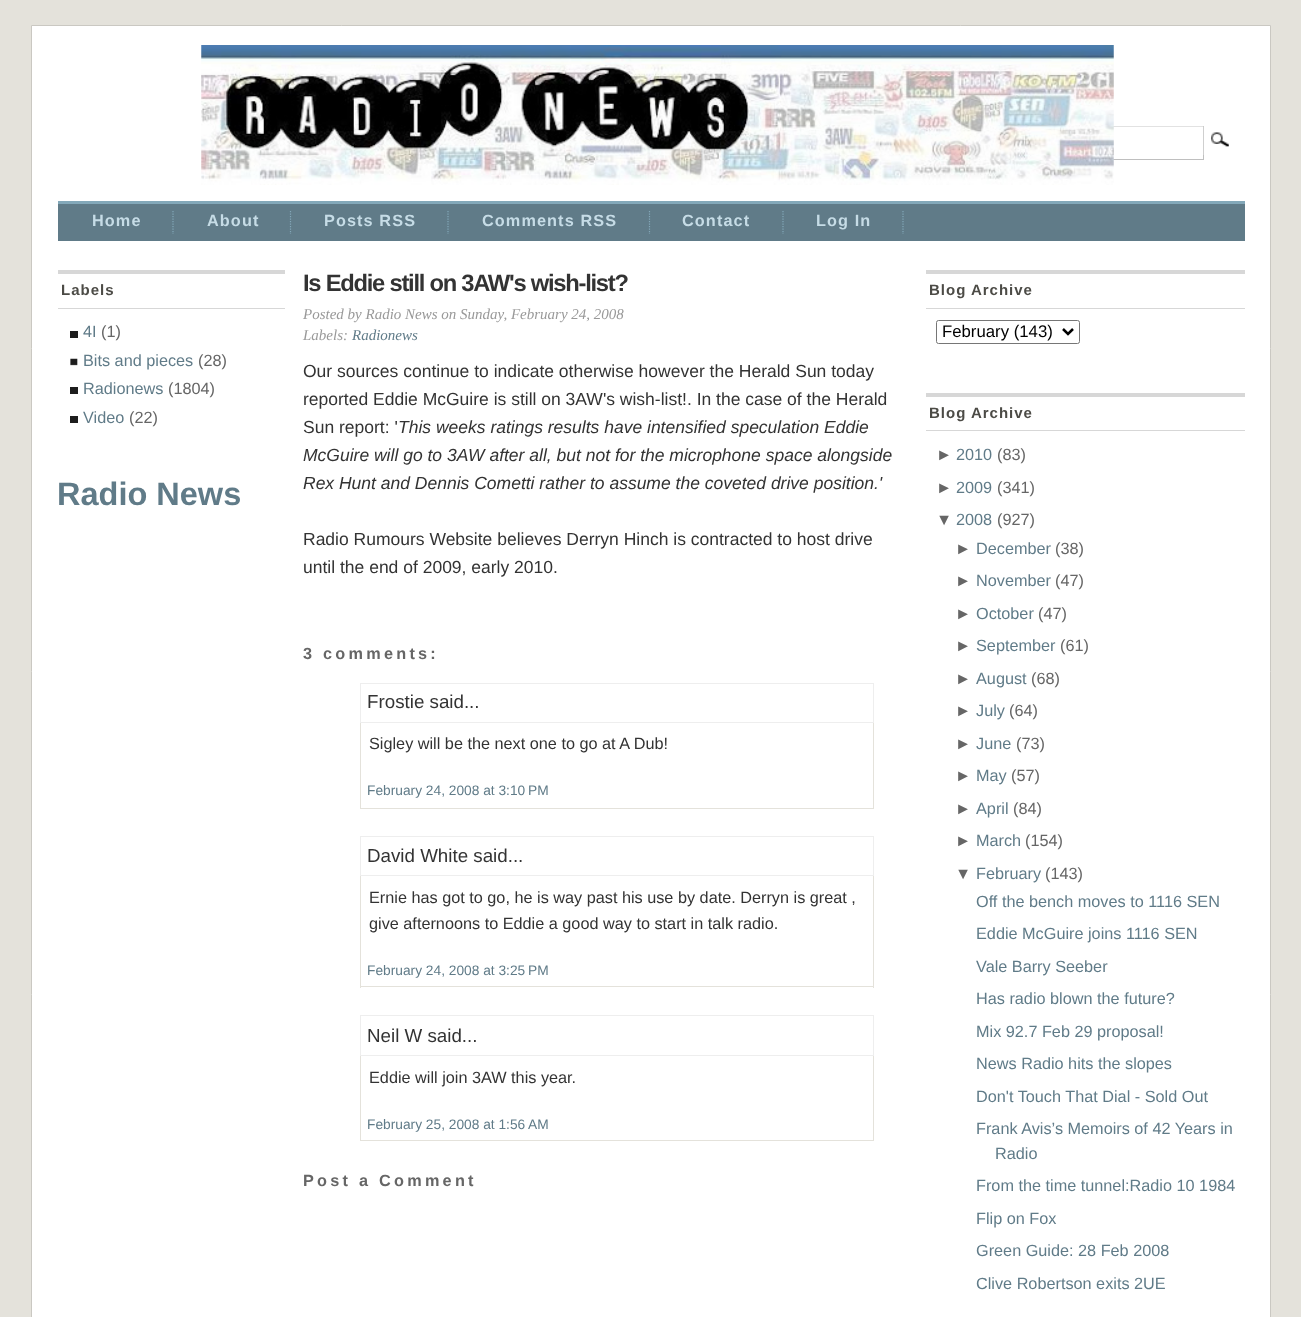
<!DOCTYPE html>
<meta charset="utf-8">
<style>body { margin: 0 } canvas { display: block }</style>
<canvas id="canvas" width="1301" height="1317"></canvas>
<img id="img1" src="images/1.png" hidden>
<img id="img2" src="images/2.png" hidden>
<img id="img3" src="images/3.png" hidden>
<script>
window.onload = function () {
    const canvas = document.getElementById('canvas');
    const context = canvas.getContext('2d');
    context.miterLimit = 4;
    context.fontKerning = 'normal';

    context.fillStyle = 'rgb(228, 226, 219)';
    context.fillRect(0, 0, 1301, 1317);
    context.fillStyle = 'rgb(255, 255, 255)';
    context.beginPath();
    context.rect(31.5, 25.5, 1239, 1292);
    context.fill();
    context.strokeStyle = 'rgb(202, 200, 194)';
    context.stroke();
    context.fillStyle = 'rgb(226, 226, 226)';
    context.fillRect(1113, 126, 91, 1);
    context.fillStyle = 'rgb(191, 191, 191)';
    context.fillRect(1203, 126, 1, 34);
    context.fillRect(1113, 159, 91, 1);
    context.drawImage(document.getElementById('img1'), 201, 45, 913, 140);
    context.drawImage(document.getElementById('img2'), 1203, 126, 26, 29);
    context.fillStyle = 'rgb(96, 123, 136)';
    context.fillRect(58, 204, 1187, 37);
    context.fillStyle = 'rgb(131, 168, 185)';
    context.fillRect(58, 201, 1187, 3);
    context.beginPath();
    context.moveTo(173, 211);
    context.lineTo(173, 234);
    context.strokeStyle = 'rgb(131, 168, 185)';
    context.lineWidth = 1.2;
    context.setLineDash([1.25, 1.25]);
    context.stroke();
    context.beginPath();
    context.moveTo(290.5, 211);
    context.lineTo(290.5, 234);
    context.stroke();
    context.beginPath();
    context.moveTo(448, 211);
    context.lineTo(448, 234);
    context.stroke();
    context.beginPath();
    context.moveTo(649.5, 211);
    context.lineTo(649.5, 234);
    context.stroke();
    context.beginPath();
    context.moveTo(783, 211);
    context.lineTo(783, 234);
    context.stroke();
    context.beginPath();
    context.moveTo(903, 211);
    context.lineTo(903, 234);
    context.stroke();
    context.fillStyle = 'rgb(215, 215, 215)';
    context.fillRect(58, 270, 227, 4);
    context.fillRect(58, 308, 227, 1);
    context.fillStyle = 'rgb(29, 29, 29)';
    context.fillRect(70, 331, 8, 7);
    context.drawImage(document.getElementById('img3'), 70, 358, 8, 8);
    context.fillRect(70, 387, 8, 7);
    context.fillRect(70, 416, 8, 7);
    context.strokeStyle = 'rgb(238, 238, 238)';
    context.lineWidth = 1;
    context.setLineDash([]);
    context.strokeRect(360.5, 683.5, 513, 39);
    context.fillStyle = 'rgb(228, 226, 219)';
    context.fillRect(873, 723, 1, 86);
    context.fillRect(360, 723, 1, 56);
    context.fillRect(360, 808, 514, 1);
    context.fillRect(360, 775, 1, 34);
    context.strokeRect(360.5, 836.5, 513, 39);
    context.fillRect(873, 876, 1, 112);
    context.fillRect(360, 876, 1, 83);
    context.fillRect(360, 986, 514, 1);
    context.fillRect(360, 955, 1, 33);
    context.strokeRect(360.5, 1015.5, 513, 40);
    context.fillRect(873, 1056, 1, 85);
    context.fillRect(360, 1056, 1, 57);
    context.fillRect(360, 1140, 514, 1);
    context.fillRect(360, 1109, 1, 32);
    context.fillStyle = 'rgb(215, 215, 215)';
    context.fillRect(926, 270, 319, 4);
    context.fillRect(926, 308, 319, 1);
    context.beginPath();
    context.roundRect(936.5, 320.5, 143, 23, 2);
    context.strokeStyle = 'rgb(118, 118, 118)';
    context.stroke();
    context.beginPath();
    context.moveTo(1063, 329);
    context.lineTo(1068, 334);
    context.lineTo(1073, 329);
    context.strokeStyle = 'rgb(0, 0, 0)';
    context.lineWidth = 2.5;
    context.stroke();
    context.fillRect(926, 393, 319, 4);
    context.fillRect(926, 430, 319, 1);
    context.letterSpacing = '1.1px';
    context.font = 'bold 16.25px Liberation Sans';
    context.fillStyle = 'rgb(198, 220, 230)';
    context.fillText('Home', 92, 226);
    context.fillText('About', 207, 226);
    context.fillText('Posts RSS', 324, 226);
    context.fillText('Comments RSS', 482, 226);
    context.fillText('Contact', 682, 226);
    context.fillText('Log In', 816, 226);
    context.letterSpacing = '1px';
    context.font = 'bold 15px Liberation Sans';
    context.fillStyle = 'rgb(76, 75, 70)';
    context.fillText('Labels', 61, 295);
    context.letterSpacing = '0px';
    context.font = '16.25px Liberation Sans';
    context.fillStyle = 'rgb(96, 123, 136)';
    context.fillText('4I', 83, 337);
    context.fillStyle = 'rgb(102, 102, 102)';
    context.fillText('(1)', 101, 337);
    context.fillStyle = 'rgb(96, 123, 136)';
    context.fillText('Bits and pieces', 83, 366);
    context.fillStyle = 'rgb(102, 102, 102)';
    context.fillText('(28)', 198, 366);
    context.fillStyle = 'rgb(96, 123, 136)';
    context.fillText('Radionews', 83, 394);
    context.fillStyle = 'rgb(102, 102, 102)';
    context.fillText('(1804)', 168, 394);
    context.fillStyle = 'rgb(96, 123, 136)';
    context.fillText('Video', 83, 423);
    context.fillStyle = 'rgb(102, 102, 102)';
    context.fillText('(22)', 129, 423);
    context.font = 'bold 32.5px Liberation Sans';
    context.fillStyle = 'rgb(96, 123, 136)';
    context.fillText('Radio News', 57, 505);
    context.letterSpacing = '-1.25px';
    context.font = 'bold 23.75px Liberation Sans';
    context.fillStyle = 'rgb(51, 51, 51)';
    context.fillText('Is Eddie still on 3AW\'s wish-list?', 303, 291);
    context.letterSpacing = '0px';
    context.font = 'italic 15px Liberation Serif';
    context.fillStyle = 'rgb(153, 153, 153)';
    context.fillText('Posted by Radio News on Sunday, February 24, 2008', 303, 319);
    context.fillText('Labels:', 303, 340);
    context.fillStyle = 'rgb(96, 123, 136)';
    context.fillText('Radionews', 352, 340);
    context.font = '17.5px Liberation Sans';
    context.fillStyle = 'rgb(51, 51, 51)';
    context.fillText('Our sources continue to indicate otherwise however the Herald Sun today', 303, 377);
    context.fillText('reported Eddie McGuire is still on 3AW\'s wish-list!. In the case of the Herald', 303, 405);
    context.fillText('Sun report: \'', 303, 433);
    context.font = 'italic 17.5px Liberation Sans';
    context.fillText('This weeks ratings results have intensified speculation Eddie', 398, 433);
    context.fillText('McGuire will go to 3AW after all, but not for the microphone space alongside', 303, 461);
    context.fillText('Rex Hunt and Dennis Cometti rather to assume the coveted drive position.\'', 303, 489);
    context.font = '17.5px Liberation Sans';
    context.fillText('Radio Rumours Website believes Derryn Hinch is contracted to host drive', 303, 545);
    context.fillText('until the end of 2009, early 2010.', 303, 573);
    context.letterSpacing = '3.25px';
    context.font = 'bold 16.25px Liberation Sans';
    context.fillStyle = 'rgb(102, 102, 102)';
    context.fillText('3 comments:', 303, 659);
    context.letterSpacing = '0px';
    context.font = '18.75px Liberation Sans';
    context.fillStyle = 'rgb(51, 51, 51)';
    context.fillText('Frostie said...', 367, 708);
    context.font = '16.25px Liberation Sans';
    context.fillText('Sigley will be the next one to go at A Dub!', 369, 749);
    context.font = '13.75px Liberation Sans';
    context.fillStyle = 'rgb(96, 123, 136)';
    context.fillText('February 24, 2008 at 3:10 PM', 367, 795);
    context.font = '18.75px Liberation Sans';
    context.fillStyle = 'rgb(51, 51, 51)';
    context.fillText('David White said...', 367, 862);
    context.font = '16.25px Liberation Sans';
    context.fillText('Ernie has got to go, he is way past his use by date. Derryn is great ,', 369, 903);
    context.fillText('give afternoons to Eddie a good way to start in talk radio.', 369, 929);
    context.font = '13.75px Liberation Sans';
    context.fillStyle = 'rgb(96, 123, 136)';
    context.fillText('February 24, 2008 at 3:25 PM', 367, 975);
    context.font = '18.75px Liberation Sans';
    context.fillStyle = 'rgb(51, 51, 51)';
    context.fillText('Neil W said...', 367, 1042);
    context.font = '16.25px Liberation Sans';
    context.fillText('Eddie will join 3AW this year.', 369, 1083);
    context.font = '13.75px Liberation Sans';
    context.fillStyle = 'rgb(96, 123, 136)';
    context.fillText('February 25, 2008 at 1:56 AM', 367, 1129);
    context.letterSpacing = '3.25px';
    context.font = 'bold 16.25px Liberation Sans';
    context.fillStyle = 'rgb(102, 102, 102)';
    context.fillText('Post a Comment', 303, 1186);
    context.letterSpacing = '1px';
    context.font = 'bold 15px Liberation Sans';
    context.fillStyle = 'rgb(76, 75, 70)';
    context.fillText('Blog Archive', 929, 295);
    context.letterSpacing = '0px';
    context.font = '16.75px Liberation Sans';
    context.fillStyle = 'rgb(0, 0, 0)';
    context.fillText('February (143)', 942, 337);
    context.letterSpacing = '1px';
    context.font = 'bold 15px Liberation Sans';
    context.fillStyle = 'rgb(76, 75, 70)';
    context.fillText('Blog Archive', 929, 418);
    context.letterSpacing = '0px';
    context.font = '16.25px Liberation Sans';
    context.fillStyle = 'rgb(102, 102, 102)';
    context.fillText('►', 936, 460);
    context.fillStyle = 'rgb(96, 123, 136)';
    context.fillText('2010', 956, 460);
    context.fillStyle = 'rgb(102, 102, 102)';
    context.fillText('(83)', 997, 460);
    context.fillText('►', 936, 493);
    context.fillStyle = 'rgb(96, 123, 136)';
    context.fillText('2009', 956, 493);
    context.fillStyle = 'rgb(102, 102, 102)';
    context.fillText('(341)', 997, 493);
    context.fillText('▼', 936, 525);
    context.fillStyle = 'rgb(96, 123, 136)';
    context.fillText('2008', 956, 525);
    context.fillStyle = 'rgb(102, 102, 102)';
    context.fillText('(927)', 997, 525);
    context.fillText('►', 955, 554);
    context.fillStyle = 'rgb(96, 123, 136)';
    context.fillText('December', 976, 554);
    context.fillStyle = 'rgb(102, 102, 102)';
    context.fillText('(38)', 1055, 554);
    context.fillText('►', 955, 586);
    context.fillStyle = 'rgb(96, 123, 136)';
    context.fillText('November', 976, 586);
    context.fillStyle = 'rgb(102, 102, 102)';
    context.fillText('(47)', 1055, 586);
    context.fillText('►', 955, 619);
    context.fillStyle = 'rgb(96, 123, 136)';
    context.fillText('October', 976, 619);
    context.fillStyle = 'rgb(102, 102, 102)';
    context.fillText('(47)', 1038, 619);
    context.fillText('►', 955, 651);
    context.fillStyle = 'rgb(96, 123, 136)';
    context.fillText('September', 976, 651);
    context.fillStyle = 'rgb(102, 102, 102)';
    context.fillText('(61)', 1060, 651);
    context.fillText('►', 955, 684);
    context.fillStyle = 'rgb(96, 123, 136)';
    context.fillText('August', 976, 684);
    context.fillStyle = 'rgb(102, 102, 102)';
    context.fillText('(68)', 1031, 684);
    context.fillText('►', 955, 716);
    context.fillStyle = 'rgb(96, 123, 136)';
    context.fillText('July', 976, 716);
    context.fillStyle = 'rgb(102, 102, 102)';
    context.fillText('(64)', 1009, 716);
    context.fillText('►', 955, 749);
    context.fillStyle = 'rgb(96, 123, 136)';
    context.fillText('June', 976, 749);
    context.fillStyle = 'rgb(102, 102, 102)';
    context.fillText('(73)', 1016, 749);
    context.fillText('►', 955, 781);
    context.fillStyle = 'rgb(96, 123, 136)';
    context.fillText('May', 976, 781);
    context.fillStyle = 'rgb(102, 102, 102)';
    context.fillText('(57)', 1011, 781);
    context.fillText('►', 955, 814);
    context.fillStyle = 'rgb(96, 123, 136)';
    context.fillText('April', 976, 814);
    context.fillStyle = 'rgb(102, 102, 102)';
    context.fillText('(84)', 1013, 814);
    context.fillText('►', 955, 846);
    context.fillStyle = 'rgb(96, 123, 136)';
    context.fillText('March', 976, 846);
    context.fillStyle = 'rgb(102, 102, 102)';
    context.fillText('(154)', 1025, 846);
    context.fillText('▼', 955, 879);
    context.fillStyle = 'rgb(96, 123, 136)';
    context.fillText('February', 976, 879);
    context.fillStyle = 'rgb(102, 102, 102)';
    context.fillText('(143)', 1045, 879);
    context.fillStyle = 'rgb(96, 123, 136)';
    context.fillText('Off the bench moves to 1116 SEN', 976, 907);
    context.fillText('Eddie McGuire joins 1116 SEN', 976, 939);
    context.fillText('Vale Barry Seeber', 976, 972);
    context.fillText('Has radio blown the future?', 976, 1004);
    context.fillText('Mix 92.7 Feb 29 proposal!', 976, 1037);
    context.fillText('News Radio hits the slopes', 976, 1069);
    context.fillText('Don\'t Touch That Dial - Sold Out', 976, 1102);
    context.fillText('Frank Avis’s Memoirs of 42 Years in', 976, 1134);
    context.fillText('Radio', 995, 1159);
    context.fillText('From the time tunnel:Radio 10 1984', 976, 1191);
    context.fillText('Flip on Fox', 976, 1224);
    context.fillText('Green Guide: 28 Feb 2008', 976, 1256);
    context.fillText('Clive Robertson exits 2UE', 976, 1289);
};
</script>
